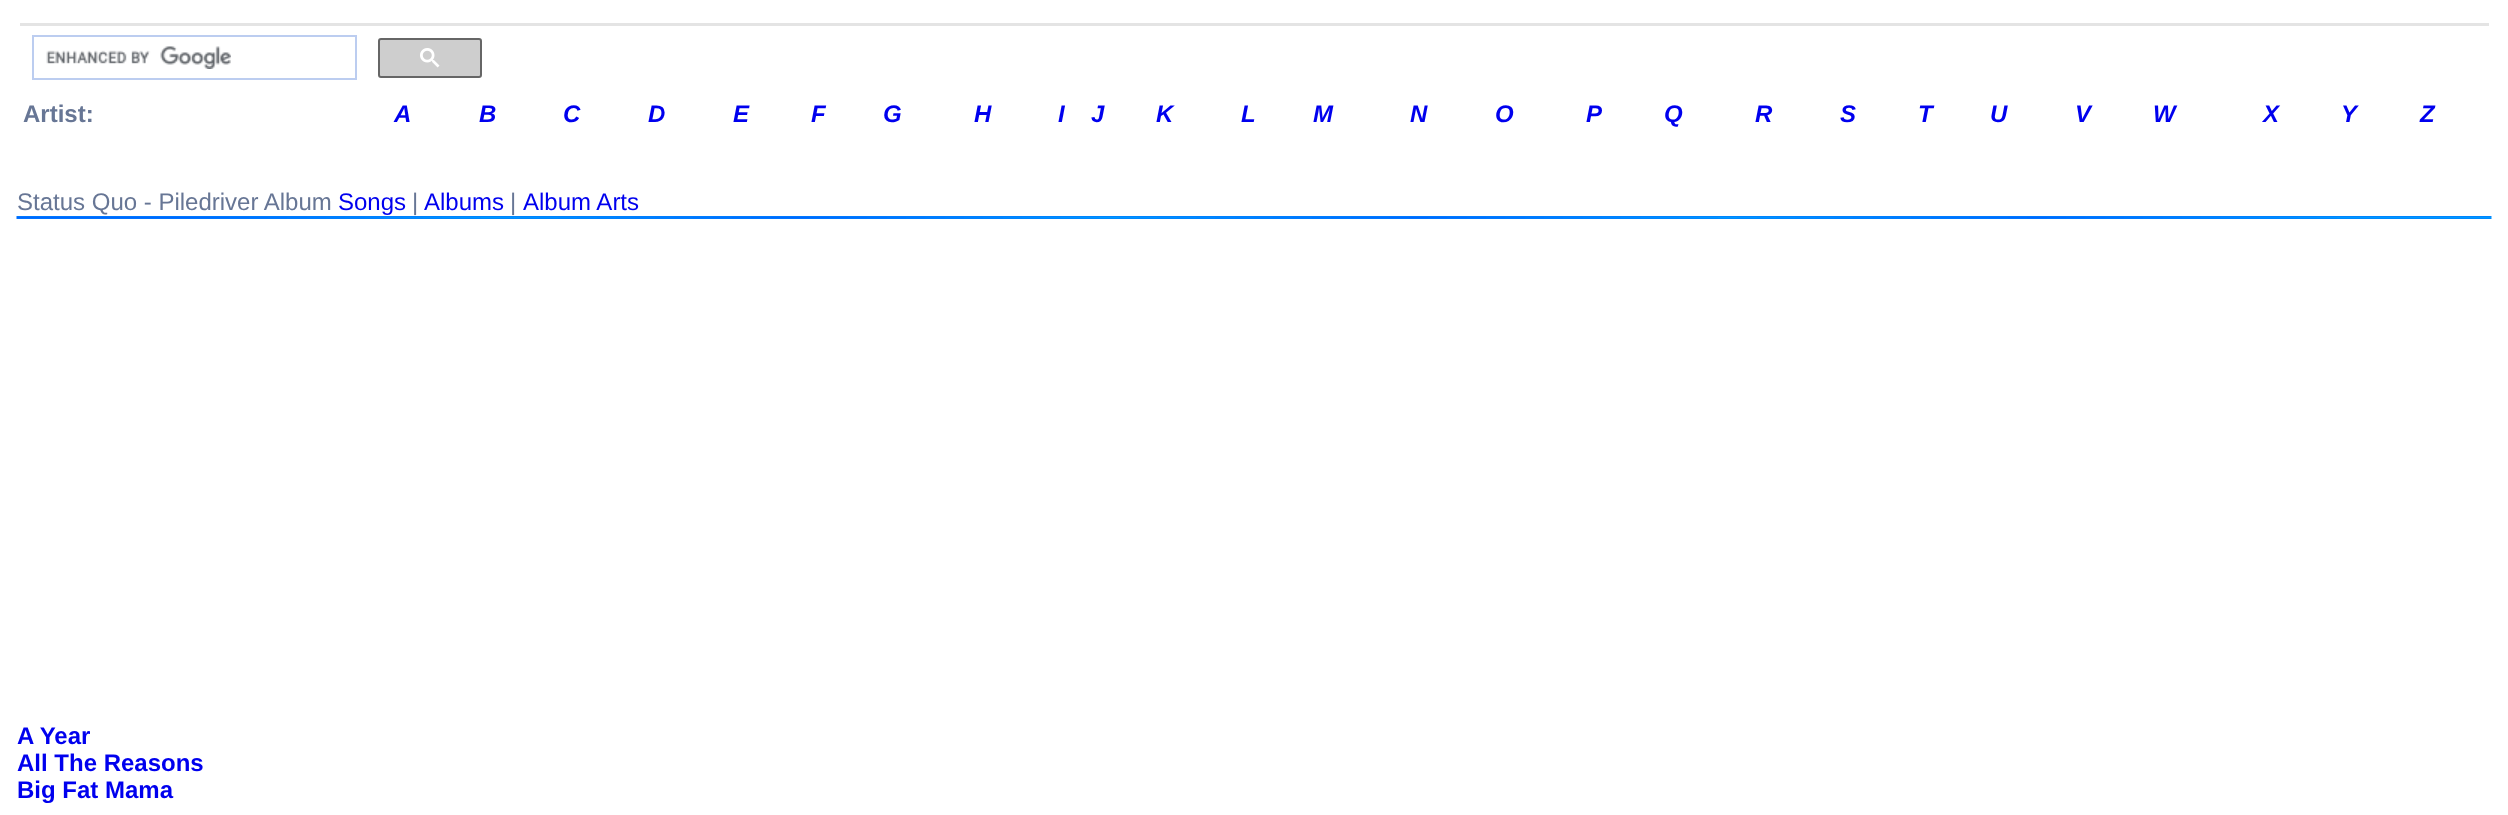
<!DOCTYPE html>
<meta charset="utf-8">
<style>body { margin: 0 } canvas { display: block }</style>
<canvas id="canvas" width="2508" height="815"></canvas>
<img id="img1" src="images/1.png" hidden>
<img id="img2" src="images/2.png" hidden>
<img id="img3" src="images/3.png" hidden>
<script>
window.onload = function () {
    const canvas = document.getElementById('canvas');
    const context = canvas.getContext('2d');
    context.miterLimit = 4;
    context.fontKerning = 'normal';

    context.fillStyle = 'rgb(255, 255, 255)';
    context.fillRect(0, 0, 2508, 815);
    context.fillStyle = 'rgb(228, 228, 228)';
    context.fillRect(20, 23, 2469, 3);
    context.strokeStyle = 'rgb(188, 205, 240)';
    context.lineWidth = 2;
    context.strokeRect(33, 36, 323, 43);
    context.drawImage(document.getElementById('img1'), 46, 46, 185, 23);
    context.fillStyle = 'rgb(206, 206, 206)';
    context.beginPath();
    context.roundRect(379, 39, 102, 38, 2);
    context.fill();
    context.strokeStyle = 'rgb(102, 102, 102)';
    context.stroke();
    context.drawImage(document.getElementById('img2'), 420, 48, 20, 20);
    context.drawImage(document.getElementById('img3'), 16, 216, 2476, 3);
    context.font = 'bold 24px Liberation Sans';
    context.fillStyle = 'rgb(103, 118, 149)';
    context.fillText('Artist:', 23, 122);
    context.font = 'italic bold 24px Liberation Sans';
    context.fillStyle = 'rgb(0, 0, 238)';
    context.fillText('A', 394, 122);
    context.fillText('B', 479, 122);
    context.fillText('C', 563, 122);
    context.fillText('D', 648, 122);
    context.fillText('E', 733, 122);
    context.fillText('F', 811, 122);
    context.fillText('G', 883, 122);
    context.fillText('H', 974, 122);
    context.fillText('I', 1058, 122);
    context.fillText('J', 1091, 122);
    context.fillText('K', 1156, 122);
    context.fillText('L', 1241, 122);
    context.fillText('M', 1313, 122);
    context.fillText('N', 1410, 122);
    context.fillText('O', 1495, 122);
    context.fillText('P', 1586, 122);
    context.fillText('Q', 1664, 122);
    context.fillText('R', 1755, 122);
    context.fillText('S', 1840, 122);
    context.fillText('T', 1918, 122);
    context.fillText('U', 1990, 122);
    context.fillText('V', 2075, 122);
    context.fillText('W', 2153, 122);
    context.fillText('X', 2263, 122);
    context.fillText('Y', 2341, 122);
    context.fillText('Z', 2420, 122);
    context.font = '24px Liberation Sans';
    context.fillStyle = 'rgb(103, 118, 149)';
    context.fillText('Status Quo - Piledriver Album', 17, 210);
    context.fillStyle = 'rgb(0, 0, 238)';
    context.fillText('Songs', 338, 210);
    context.fillStyle = 'rgb(103, 118, 149)';
    context.fillText('|', 412, 210);
    context.fillStyle = 'rgb(0, 0, 238)';
    context.fillText('Albums', 424, 210);
    context.fillStyle = 'rgb(103, 118, 149)';
    context.fillText('|', 510, 210);
    context.fillStyle = 'rgb(0, 0, 238)';
    context.fillText('Album Arts', 523, 210);
    context.font = 'bold 24px Liberation Sans';
    context.fillText('A Year', 17, 744);
    context.fillText('All The Reasons', 17, 771);
    context.fillText('Big Fat Mama', 17, 798);
};
</script>
